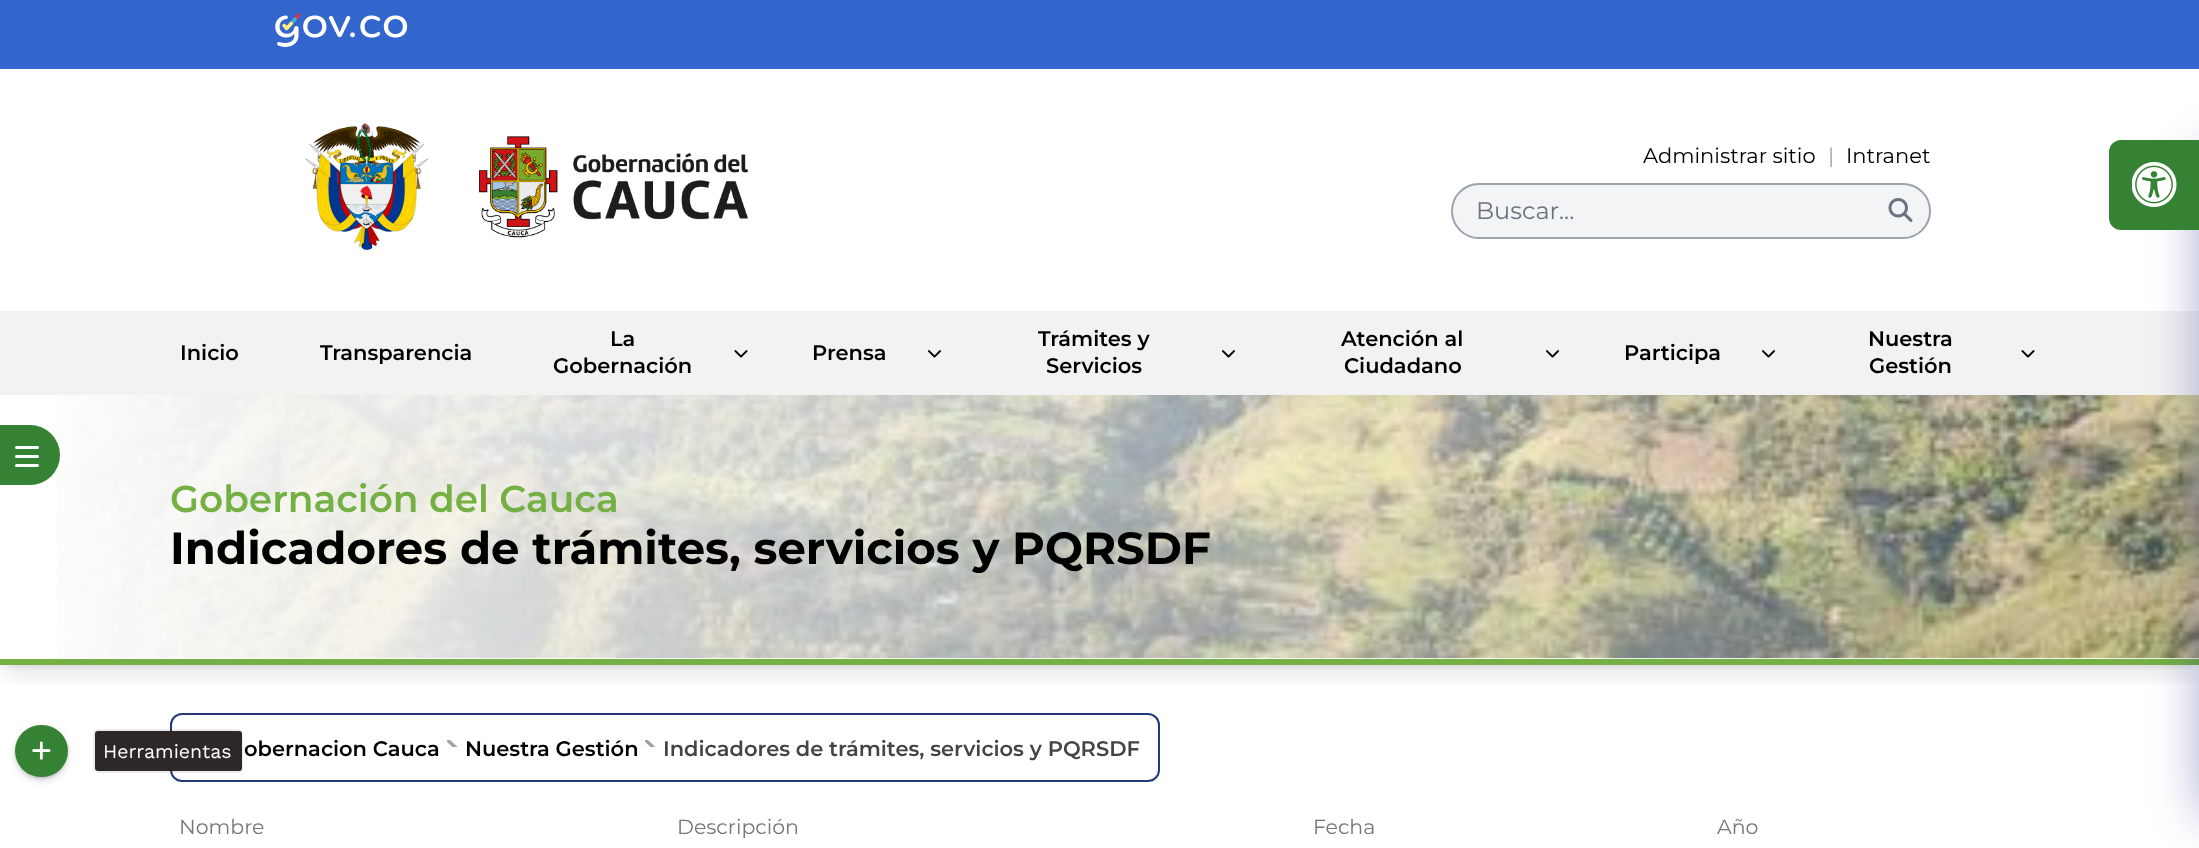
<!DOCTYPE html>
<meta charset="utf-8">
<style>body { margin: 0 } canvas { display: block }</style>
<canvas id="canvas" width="2199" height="848"></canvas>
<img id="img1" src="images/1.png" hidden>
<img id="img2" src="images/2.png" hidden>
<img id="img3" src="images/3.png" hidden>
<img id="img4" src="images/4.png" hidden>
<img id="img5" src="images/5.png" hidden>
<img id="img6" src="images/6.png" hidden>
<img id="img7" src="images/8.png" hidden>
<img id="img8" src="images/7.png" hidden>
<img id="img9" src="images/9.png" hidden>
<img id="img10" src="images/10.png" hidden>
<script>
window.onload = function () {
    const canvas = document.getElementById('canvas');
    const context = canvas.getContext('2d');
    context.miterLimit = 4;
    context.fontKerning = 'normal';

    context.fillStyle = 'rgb(255, 255, 255)';
    context.fillRect(0, 0, 2199, 848);
    context.fillStyle = 'rgb(51, 102, 204)';
    context.fillRect(0, 0, 2199, 69);
    context.drawImage(document.getElementById('img1'), 275, 13, 133, 34);
    context.drawImage(document.getElementById('img2'), 305, 123, 123, 127);
    context.drawImage(document.getElementById('img3'), 479, 136, 269, 102);
    context.fillStyle = 'rgb(243, 244, 246)';
    context.beginPath();
    context.roundRect(1452, 184, 478, 54, 27);
    context.fill();
    context.strokeStyle = 'rgb(156, 163, 175)';
    context.lineWidth = 2;
    context.stroke();
    context.drawImage(document.getElementById('img4'), 1888, 198, 25, 24);
    context.save();
    context.beginPath();
    context.rect(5, 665, 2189, 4);
    context.clip();
    context.fillStyle = 'rgba(0, 0, 0, 0.1)';
    context.filter = 'blur(4.5px)';
    context.beginPath();
    context.rect(6, 407, 2187, 258);
    context.fill();
    context.filter = 'none';
    context.restore();
    context.save();
    context.beginPath();
    context.rect(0, 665, 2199, 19);
    context.clip();
    context.fillStyle = 'rgba(0, 0, 0, 0.1)';
    context.filter = 'blur(11px)';
    context.beginPath();
    context.rect(5, 414, 2190, 261);
    context.fill();
    context.filter = 'none';
    context.restore();
    context.fillStyle = 'rgb(242, 242, 242)';
    context.fillRect(0, 311, 2199, 84);
    context.drawImage(document.getElementById('img5'), 734, 350, 14, 8);
    context.drawImage(document.getElementById('img6'), 928, 350, 13, 8);
    context.drawImage(document.getElementById('img6'), 1222, 350, 13, 8);
    context.drawImage(document.getElementById('img6'), 1546, 350, 13, 8);
    context.drawImage(document.getElementById('img6'), 1762, 350, 13, 8);
    context.drawImage(document.getElementById('img5'), 2021, 350, 14, 8);
    context.drawImage(document.getElementById('img7'), 57, 395, 2142, 264);
    context.fillStyle = 'rgb(54, 130, 52)';
    context.beginPath();
    context.roundRect(0, 425, 60, 60, [0, 30, 30, 0]);
    context.fill();
    context.fillStyle = 'rgb(255, 255, 255)';
    context.beginPath();
    context.roundRect(15, 446, 24, 3, 1.5);
    context.fill();
    context.beginPath();
    context.roundRect(15, 455, 24, 3, 1.5);
    context.fill();
    context.beginPath();
    context.roundRect(15, 464, 24, 3, 1.5);
    context.fill();
    context.fillStyle = 'rgba(0, 0, 0, 0.3)';
    context.filter = 'blur(2px)';
    context.beginPath();
    context.roundRect(17, 728, 49, 49, 24.5);
    context.fill();
    context.filter = 'none';
    context.fillStyle = 'rgba(50, 50, 93, 0.25)';
    context.filter = 'blur(4px)';
    context.beginPath();
    context.roundRect(17, 729, 49, 50, 24.5);
    context.fill();
    context.filter = 'none';
    context.fillStyle = 'rgb(54, 130, 52)';
    context.beginPath();
    context.roundRect(15, 725, 53, 52, 26);
    context.fill();
    context.drawImage(document.getElementById('img8'), 32, 741, 19, 19);
    context.beginPath();
    context.roundRect(171, 714, 988, 67, 11);
    context.strokeStyle = 'rgb(35, 57, 120)';
    context.stroke();
    context.beginPath();
    context.roundRect(94, 730, 148, 42, 4);
    context.strokeStyle = 'rgba(0, 0, 0, 0.08)';
    context.stroke();
    context.fillStyle = 'rgb(45, 39, 39)';
    context.beginPath();
    context.roundRect(95, 731, 147, 40, 3);
    context.fill();
    context.fillStyle = 'rgb(116, 176, 67)';
    context.fillRect(0, 659, 2199, 6);
    context.drawImage(document.getElementById('img9'), 447, 740, 11, 7);
    context.drawImage(document.getElementById('img9'), 645, 740, 11, 7);
    context.fillStyle = 'rgba(31, 38, 135, 0.37)';
    context.filter = 'blur(24px)';
    context.beginPath();
    context.roundRect(2199, 152, 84, 664, 12);
    context.fill();
    context.filter = 'none';
    context.fillStyle = 'rgb(54, 130, 52)';
    context.beginPath();
    context.roundRect(2109, 140, 90, 90, [12, 0, 0, 12]);
    context.fill();
    context.drawImage(document.getElementById('img10'), 2132, 162, 45, 45);
    context.font = '21px Montserrat';
    context.fillStyle = 'rgb(0, 0, 0)';
    context.fillText('Administrar sitio', 1643, 163);
    context.fillStyle = 'rgb(156, 163, 175)';
    context.fillText('|', 1828, 163);
    context.fillStyle = 'rgb(0, 0, 0)';
    context.fillText('Intranet', 1846, 163);
    context.font = '24px Montserrat';
    context.fillStyle = 'rgb(107, 114, 128)';
    context.fillText('Buscar...', 1476, 219);
    context.font = '600 21px Montserrat';
    context.fillStyle = 'rgb(0, 0, 0)';
    context.fillText('Inicio', 180, 360);
    context.fillText('Transparencia', 320, 360);
    context.fillText('La', 610, 346);
    context.fillText('Gobernación', 553, 373);
    context.fillText('Prensa', 812, 360);
    context.fillText('Trámites y', 1038, 346);
    context.fillText('Servicios', 1046, 373);
    context.fillText('Atención al', 1341, 346);
    context.fillText('Ciudadano', 1344, 373);
    context.fillText('Participa', 1624, 360);
    context.fillText('Nuestra', 1868, 346);
    context.fillText('Gestión', 1869, 373);
    context.font = '19.5px Work Sans';
    context.fillStyle = 'rgb(255, 255, 255)';
    context.fillText('Herramientas', 103, 758);
    context.font = '600 37.5px Montserrat';
    context.fillStyle = 'rgb(116, 176, 67)';
    context.fillText('Gobernación del Cauca', 170, 512);
    context.font = 'bold 45px Montserrat';
    context.fillStyle = 'rgb(0, 0, 0)';
    context.fillText('Indicadores de trámites, servicios y PQRSDF', 170, 564);
    context.font = '600 21px Montserrat';
    context.fillText('obernacion Cauca', 244, 756);
    context.fillText('Nuestra Gestión', 465, 756);
    context.fillStyle = 'rgb(68, 68, 68)';
    context.fillText('Indicadores de trámites, servicios y PQRSDF', 663, 756);
    context.font = '20.5px Montserrat';
    context.fillStyle = 'rgb(119, 119, 119)';
    context.fillText('Nombre', 179, 834);
    context.fillText('Descripción', 677, 834);
    context.fillText('Fecha', 1313, 834);
    context.fillText('Año', 1717, 834);
};
</script>
